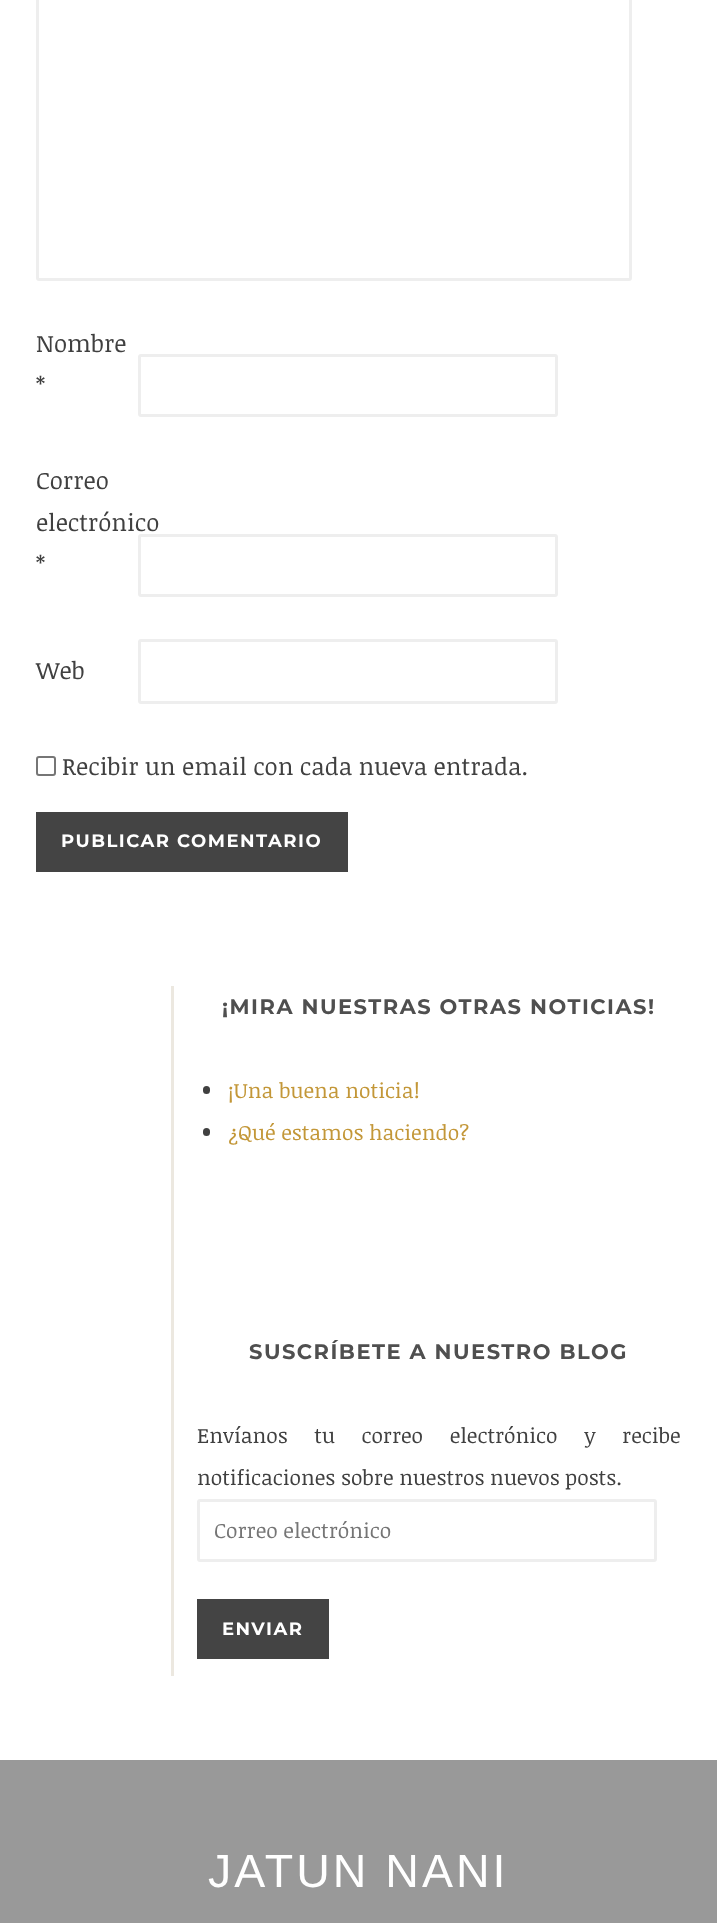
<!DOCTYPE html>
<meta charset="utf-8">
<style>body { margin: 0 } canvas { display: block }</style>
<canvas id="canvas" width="717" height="1923"></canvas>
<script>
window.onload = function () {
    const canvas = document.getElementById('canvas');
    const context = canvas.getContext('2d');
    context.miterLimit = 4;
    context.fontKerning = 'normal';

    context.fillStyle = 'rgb(255, 255, 255)';
    context.fillRect(0, 0, 717, 1923);
    context.beginPath();
    context.roundRect(37.5, -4.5, 593, 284, 1.5);
    context.strokeStyle = 'rgb(238, 238, 238)';
    context.lineWidth = 3;
    context.stroke();
    context.beginPath();
    context.roundRect(139.5, 355.5, 417, 60, 1.5);
    context.stroke();
    context.beginPath();
    context.roundRect(139.5, 535.5, 417, 60, 1.5);
    context.stroke();
    context.beginPath();
    context.roundRect(139.5, 640.5, 417, 62, 1.5);
    context.stroke();
    context.beginPath();
    context.roundRect(37, 757, 18, 18, 2);
    context.strokeStyle = 'rgb(118, 118, 118)';
    context.lineWidth = 2;
    context.stroke();
    context.fillStyle = 'rgb(68, 68, 68)';
    context.fillRect(36, 812, 312, 60);
    context.fillStyle = 'rgb(236, 232, 224)';
    context.fillRect(171, 986, 3, 690);
    context.fillStyle = 'rgb(64, 64, 64)';
    context.beginPath();
    context.roundRect(203, 1086, 7, 8, 3.5);
    context.fill();
    context.beginPath();
    context.roundRect(203, 1128, 7, 8, 3.5);
    context.fill();
    context.beginPath();
    context.roundRect(198.5, 1500.5, 457, 60, 1.5);
    context.strokeStyle = 'rgb(238, 238, 238)';
    context.lineWidth = 3;
    context.stroke();
    context.fillStyle = 'rgb(68, 68, 68)';
    context.fillRect(197, 1599, 132, 60);
    context.fillStyle = 'rgb(153, 153, 153)';
    context.fillRect(0, 1760, 717, 163);
    context.font = '24px Noticia Text';
    context.fillStyle = 'rgb(64, 64, 64)';
    context.fillText('Nombre', 36, 352);
    context.fillText('*', 36, 394);
    context.fillText('Correo', 36, 489);
    context.fillText('electrónico', 36, 531);
    context.fillText('*', 36, 573);
    context.fillText('Web', 36, 679);
    context.fillText('Recibir un email con cada nueva entrada.', 62, 775);
    context.letterSpacing = '1.5px';
    context.font = 'bold 18px Montserrat';
    context.fillStyle = 'rgb(255, 255, 255)';
    context.fillText('PUBLICAR COMENTARIO', 61, 847);
    context.font = 'bold 21px Montserrat';
    context.fillStyle = 'rgb(79, 79, 79)';
    context.fillText('¡MIRA NUESTRAS OTRAS NOTICIAS!', 222, 1014);
    context.letterSpacing = '0px';
    context.font = '21px Noticia Text';
    context.fillStyle = 'rgb(195, 151, 56)';
    context.fillText('¡Una buena noticia!', 228, 1098);
    context.fillText('¿Qué estamos haciendo?', 228, 1140);
    context.letterSpacing = '1.5px';
    context.font = 'bold 21px Montserrat';
    context.fillStyle = 'rgb(79, 79, 79)';
    context.fillText('SUSCRÍBETE A NUESTRO BLOG', 249, 1359);
    context.letterSpacing = '0px';
    context.wordSpacing = '21px';
    context.font = '21px Noticia Text';
    context.fillStyle = 'rgb(64, 64, 64)';
    context.fillText('Envíanos tu correo electrónico y recibe', 197, 1443);
    context.wordSpacing = '0px';
    context.fillText('notificaciones sobre nuestros nuevos posts.', 197, 1485);
    context.fillStyle = 'rgb(117, 117, 117)';
    context.fillText('Correo electrónico', 214, 1538);
    context.letterSpacing = '1.5px';
    context.font = 'bold 18px Montserrat';
    context.fillStyle = 'rgb(255, 255, 255)';
    context.fillText('ENVIAR', 222, 1635);
    context.letterSpacing = '3px';
    context.font = '46.5px Liberation Sans';
    context.fillText('JATUN NANI', 208, 1887);
};
</script>
